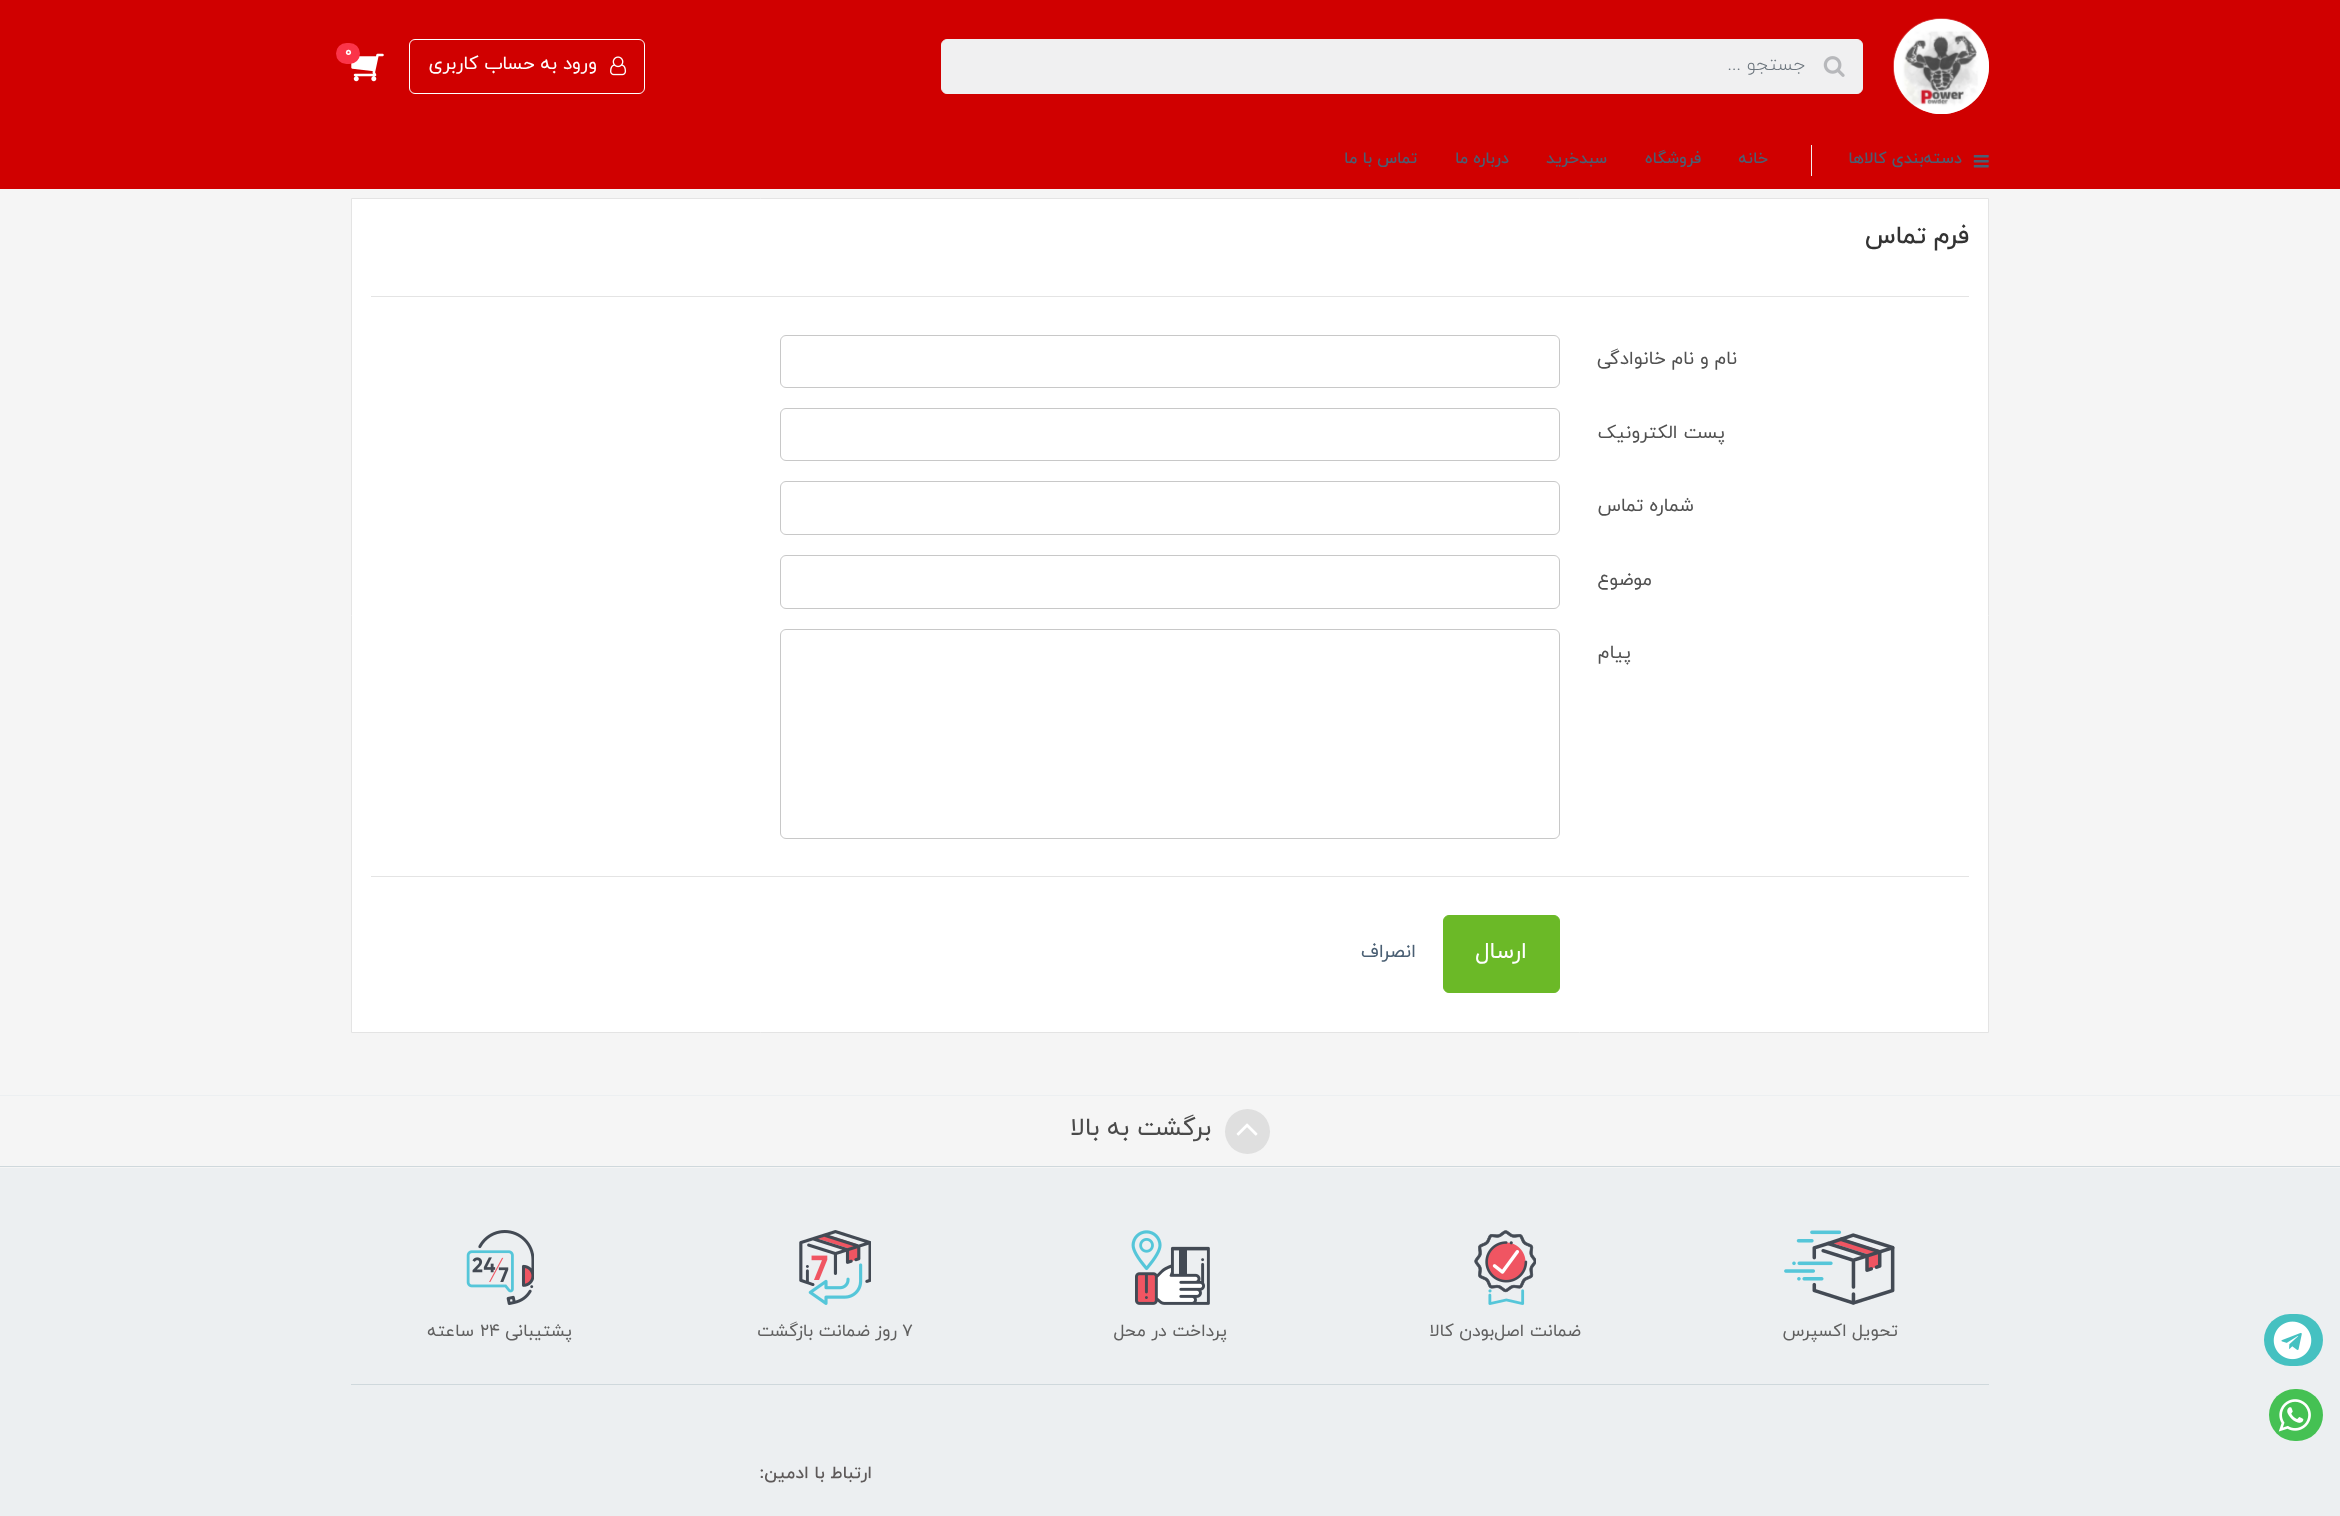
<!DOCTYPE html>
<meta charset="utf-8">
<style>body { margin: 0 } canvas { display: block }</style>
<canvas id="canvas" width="2340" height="1516"></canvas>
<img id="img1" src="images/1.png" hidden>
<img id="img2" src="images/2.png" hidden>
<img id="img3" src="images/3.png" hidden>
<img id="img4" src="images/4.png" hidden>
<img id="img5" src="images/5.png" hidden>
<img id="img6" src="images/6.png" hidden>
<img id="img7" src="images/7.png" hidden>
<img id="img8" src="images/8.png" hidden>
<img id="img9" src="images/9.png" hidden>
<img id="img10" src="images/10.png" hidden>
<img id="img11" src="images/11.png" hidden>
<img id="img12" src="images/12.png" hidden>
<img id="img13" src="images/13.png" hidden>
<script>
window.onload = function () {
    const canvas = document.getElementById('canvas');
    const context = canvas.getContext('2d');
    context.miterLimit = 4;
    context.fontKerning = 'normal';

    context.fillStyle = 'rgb(245, 245, 245)';
    context.fillRect(0, 0, 2340, 1516);
    context.fillStyle = 'rgb(208, 0, 0)';
    context.fillRect(0, 0, 2340, 189);
    context.fillStyle = 'rgb(255, 255, 255)';
    context.beginPath();
    context.arc(1941.5, 66.5, 47.5, 0, 2 * Math.PI);
    context.fill();
    context.drawImage(document.getElementById('img1'), 1893, 18, 96, 96);
    context.fillStyle = 'rgb(240, 240, 241)';
    context.beginPath();
    context.roundRect(941.5, 39.5, 921, 54, 5.5);
    context.fill();
    context.strokeStyle = 'rgb(240, 240, 241)';
    context.stroke();
    context.drawImage(document.getElementById('img2'), 1823, 56, 22, 21);
    context.drawImage(document.getElementById('img3'), 351, 53, 33, 29);
    context.fillStyle = 'rgb(251, 52, 73)';
    context.beginPath();
    context.roundRect(336, 43, 24, 21, 10.5);
    context.fill();
    context.beginPath();
    context.roundRect(409.5, 39.5, 235, 54, 5.5);
    context.strokeStyle = 'rgb(255, 255, 255)';
    context.stroke();
    context.drawImage(document.getElementById('img4'), 610, 56, 17, 20);
    context.drawImage(document.getElementById('img5'), 1973, 155, 16, 13);
    context.fillStyle = 'rgb(240, 240, 240)';
    context.fillRect(1811, 145, 1, 31);
    context.fillStyle = 'rgb(255, 255, 255)';
    context.beginPath();
    context.rect(351.5, 198.5, 1637, 834);
    context.fill();
    context.strokeStyle = 'rgb(228, 228, 228)';
    context.stroke();
    context.fillStyle = 'rgb(228, 228, 228)';
    context.fillRect(371, 296, 1598, 1);
    context.beginPath();
    context.roundRect(780.5, 335.5, 779, 52, 5.5);
    context.strokeStyle = 'rgb(200, 200, 200)';
    context.stroke();
    context.beginPath();
    context.roundRect(780.5, 408.5, 779, 52, 5.5);
    context.stroke();
    context.beginPath();
    context.roundRect(780.5, 481.5, 779, 53, 5.5);
    context.stroke();
    context.beginPath();
    context.roundRect(780.5, 555.5, 779, 53, 5.5);
    context.stroke();
    context.beginPath();
    context.roundRect(780.5, 629.5, 779, 209, 5.5);
    context.stroke();
    context.fillRect(371, 876, 1598, 1);
    context.fillStyle = 'rgb(107, 185, 39)';
    context.beginPath();
    context.roundRect(1443.5, 915.5, 116, 77, 5.5);
    context.fill();
    context.strokeStyle = 'rgb(107, 185, 39)';
    context.stroke();
    context.fillStyle = 'rgb(236, 239, 241)';
    context.fillRect(0, 1095, 2340, 1);
    context.fillStyle = 'rgb(207, 216, 220)';
    context.fillRect(0, 1166, 2340, 1);
    context.fillStyle = 'rgb(223, 223, 223)';
    context.beginPath();
    context.arc(1247.5, 1131.5, 22.5, 0, 2 * Math.PI);
    context.fill();
    context.drawImage(document.getElementById('img6'), 1236, 1123, 22, 13);
    context.fillStyle = 'rgb(236, 239, 241)';
    context.fillRect(0, 1168, 2340, 348);
    context.fillStyle = 'rgb(69, 193, 193)';
    context.beginPath();
    context.roundRect(2264, 1314, 59, 52, 26);
    context.fill();
    context.drawImage(document.getElementById('img7'), 2273, 1321, 39, 39);
    context.fillStyle = 'rgb(207, 216, 220)';
    context.fillRect(351, 1384, 1638, 1);
    context.drawImage(document.getElementById('img8'), 1784, 1230, 111, 75);
    context.drawImage(document.getElementById('img9'), 1474, 1230, 62, 75);
    context.drawImage(document.getElementById('img10'), 1131, 1230, 79, 75);
    context.drawImage(document.getElementById('img11'), 799, 1230, 72, 75);
    context.drawImage(document.getElementById('img12'), 466, 1230, 68, 75);
    context.fillStyle = 'rgb(69, 193, 83)';
    context.beginPath();
    context.roundRect(2269, 1389, 54, 52, 26);
    context.fill();
    context.drawImage(document.getElementById('img13'), 2278, 1399, 33, 33);
    context.direction = 'rtl';
    context.font = '300 18.75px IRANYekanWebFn';
    context.fillStyle = 'rgb(108, 117, 125)';
    context.fillText('جستجو ...', 1805, 70);
    context.direction = 'ltr';
    context.font = 'bold 14px IRANYekanWebFn';
    context.fillStyle = 'rgb(255, 255, 255)';
    context.fillText('0', 345, 56);
    context.direction = 'rtl';
    context.font = '18.75px IRANYekanWebFn';
    context.fillText('ورود به حساب کاربری', 597, 69);
    context.font = '500 16.25px IRANYekanWebFn';
    context.fillStyle = 'rgb(74, 95, 115)';
    context.fillText('دسته‌بندی کالاها', 1962, 163);
    context.fillText('خانه', 1768, 163);
    context.fillText('فروشگاه', 1701, 163);
    context.fillText('سبدخرید', 1607, 163);
    context.fillText('درباره ما', 1509, 163);
    context.fillText('تماس با ما', 1417, 163);
    context.font = '500 25px IRANYekanWebFn';
    context.fillStyle = 'rgb(51, 51, 51)';
    context.fillText('فرم تماس', 1969, 243);
    context.font = '18.75px IRANYekanWebFn';
    context.fillStyle = 'rgb(81, 81, 81)';
    context.fillText('نام و نام خانوادگی', 1737, 364);
    context.fillText('پست الکترونیک', 1725, 438);
    context.fillText('شماره تماس', 1694, 511);
    context.fillText('موضوع', 1652, 585);
    context.fillText('پیام', 1631, 658);
    context.font = '23px IRANYekanWebFn';
    context.fillStyle = 'rgb(255, 255, 255)';
    context.fillText('ارسال', 1527, 958);
    context.font = '18.75px IRANYekanWebFn';
    context.fillStyle = 'rgb(74, 95, 115)';
    context.fillText('انصراف', 1416, 957);
    context.font = '25px IRANYekanWebFn';
    context.fillStyle = 'rgb(74, 74, 74)';
    context.fillText('برگشت به بالا', 1211, 1135);
    context.font = '17.5px IRANYekanWebFn';
    context.fillStyle = 'rgb(96, 96, 96)';
    context.fillText('تحویل اکسپرس', 1898, 1336);
    context.fillText('ضمانت اصل‌بودن کالا', 1581, 1336);
    context.fillText('پرداخت در محل', 1227, 1336);
    context.direction = 'ltr';
    context.fillText('۷', 902, 1336);
    context.direction = 'rtl';
    context.fillText('روز ضمانت بازگشت', 897, 1336);
    context.fillText('پشتیبانی', 572, 1336);
    context.direction = 'ltr';
    context.fillText('۲۴', 480, 1336);
    context.direction = 'rtl';
    context.fillText('ساعته', 474, 1336);
    context.font = '500 17.5px IRANYekanWebFn';
    context.fillStyle = 'rgb(93, 89, 89)';
    context.fillText('ارتباط با ادمین:', 872, 1478);
};
</script>
